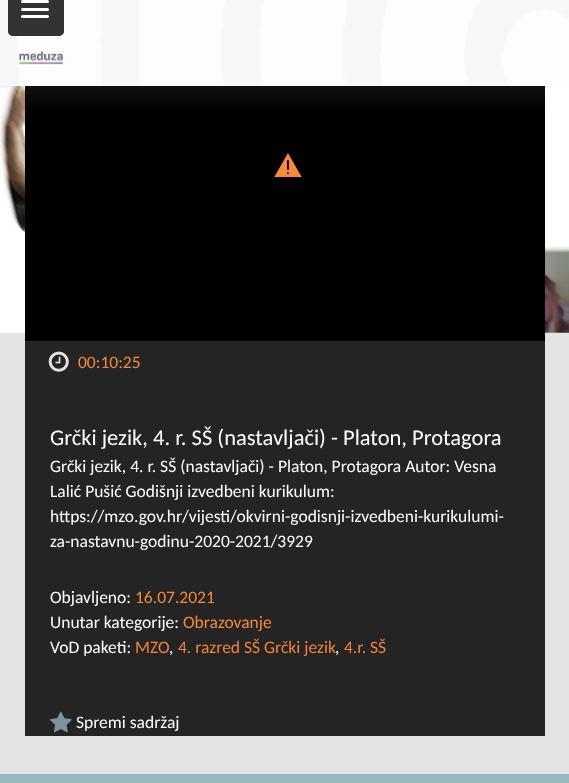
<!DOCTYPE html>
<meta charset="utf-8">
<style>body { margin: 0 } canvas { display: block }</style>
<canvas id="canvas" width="569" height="783"></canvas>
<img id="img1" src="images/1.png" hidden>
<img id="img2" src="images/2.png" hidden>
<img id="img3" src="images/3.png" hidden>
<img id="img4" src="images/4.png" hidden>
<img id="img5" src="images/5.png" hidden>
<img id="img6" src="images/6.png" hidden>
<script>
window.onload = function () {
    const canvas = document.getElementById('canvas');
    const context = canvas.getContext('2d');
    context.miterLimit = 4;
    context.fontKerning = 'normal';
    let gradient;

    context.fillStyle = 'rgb(228, 228, 228)';
    context.fillRect(0, 0, 569, 783);
    context.drawImage(document.getElementById('img1'), 0, 0, 569, 86);
    context.fillStyle = 'rgb(51, 51, 51)';
    context.beginPath();
    context.roundRect(8, 0, 56, 36, [0, 0, 5, 5]);
    context.fill();
    context.beginPath();
    context.roundRect(8.5, -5.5, 55, 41, 4.5);
    context.strokeStyle = 'rgb(51, 51, 51)';
    context.stroke();
    context.fillStyle = 'rgb(255, 255, 255)';
    context.beginPath();
    context.roundRect(21, 0, 28, 3, 1.5);
    context.fill();
    context.beginPath();
    context.roundRect(21, 8, 28, 3, 1.5);
    context.fill();
    context.beginPath();
    context.roundRect(21, 15, 28, 3, 1.5);
    context.fill();
    context.drawImage(document.getElementById('img2'), 18, 51, 45, 14);
    context.drawImage(document.getElementById('img3'), 0, 86, 569, 247);
    context.fillStyle = 'rgb(0, 0, 0)';
    context.fillRect(25, 113, 520, 228);
    gradient = context.createLinearGradient(285, 49, 285, 113);
    gradient.addColorStop(0, 'rgb(38, 38, 38)');
    gradient.addColorStop(1, 'rgb(0, 0, 0)');
    context.fillStyle = gradient;
    context.fillRect(25, 86, 520, 27);
    context.drawImage(document.getElementById('img4'), 274, 153, 28, 25);
    context.fillStyle = 'rgb(36, 36, 36)';
    context.fillRect(25, 341, 520, 395);
    context.drawImage(document.getElementById('img5'), 48, 351, 21, 21);
    context.drawImage(document.getElementById('img6'), 50, 711, 22, 22);
    context.fillStyle = 'rgb(154, 184, 193)';
    context.fillRect(0, 774, 569, 9);
    context.font = '17.5px Carlito';
    context.fillStyle = 'rgb(247, 138, 57)';
    context.fillText('00:10:25', 78, 368);
    context.font = '22.5px Carlito';
    context.fillStyle = 'rgb(255, 255, 255)';
    context.fillText('Grčki jezik, 4. r. SŠ (nastavljači) - Platon, Protagora', 50, 445);
    context.font = '17.5px Carlito';
    context.fillText('Grčki jezik, 4. r. SŠ (nastavljači) - Platon, Protagora Autor: Vesna', 50, 472);
    context.fillText('Lalić Pušić Godišnji izvedbeni kurikulum:', 50, 497);
    context.fillText('https://mzo.gov.hr/vijesti/okvirni-godisnji-izvedbeni-kurikulumi-', 50, 522);
    context.fillText('za-nastavnu-godinu-2020-2021/3929', 50, 547);
    context.fillText('Objavljeno:', 50, 603);
    context.fillStyle = 'rgb(247, 138, 57)';
    context.fillText('16.07.2021', 135, 603);
    context.fillStyle = 'rgb(255, 255, 255)';
    context.fillText('Unutar kategorije:', 50, 628);
    context.fillStyle = 'rgb(247, 138, 57)';
    context.fillText('Obrazovanje', 183, 628);
    context.fillStyle = 'rgb(255, 255, 255)';
    context.fillText('VoD paketi:', 50, 653);
    context.fillStyle = 'rgb(247, 129, 57)';
    context.fillText('MZO', 135, 653);
    context.fillStyle = 'rgb(255, 255, 255)';
    context.fillText(',', 169, 653);
    context.fillStyle = 'rgb(247, 129, 57)';
    context.fillText('4. razred SŠ Grčki jezik', 178, 653);
    context.fillStyle = 'rgb(255, 255, 255)';
    context.fillText(',', 335, 653);
    context.fillStyle = 'rgb(247, 129, 57)';
    context.fillText('4.r. SŠ', 344, 653);
    context.fillStyle = 'rgb(255, 255, 255)';
    context.fillText('Spremi sadržaj', 76, 728);
};
</script>
